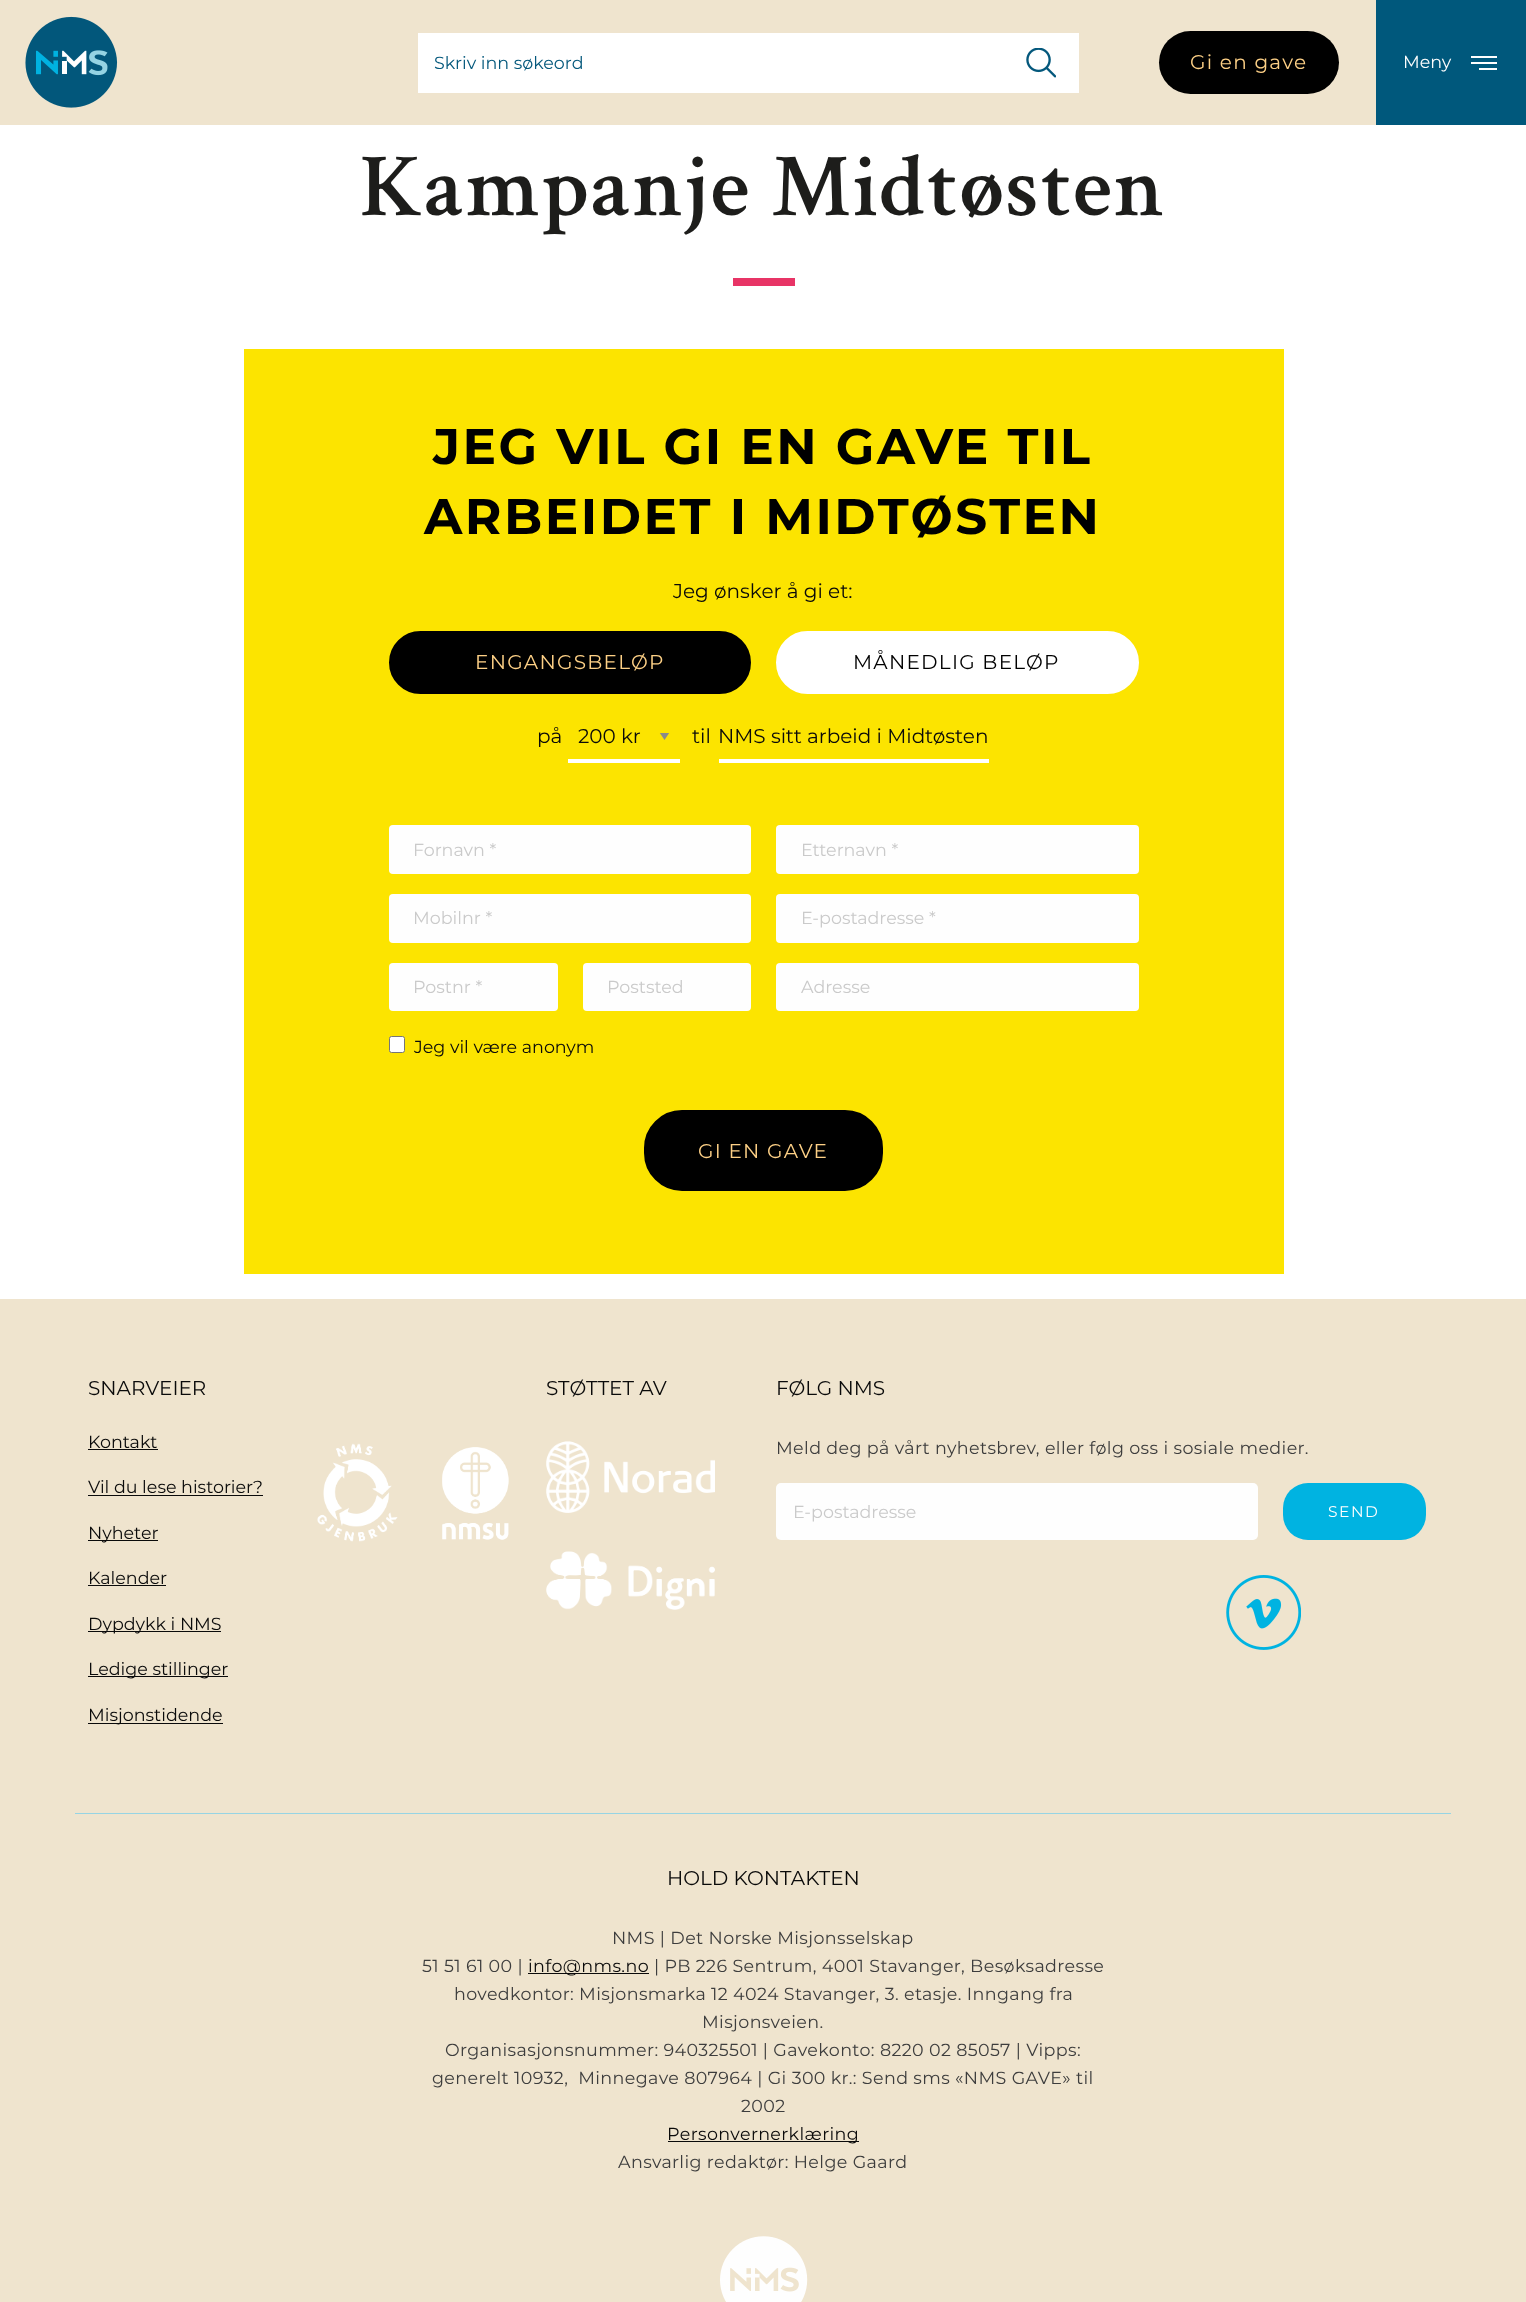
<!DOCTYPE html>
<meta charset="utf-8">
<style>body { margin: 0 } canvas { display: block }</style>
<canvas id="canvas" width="1526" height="2302"></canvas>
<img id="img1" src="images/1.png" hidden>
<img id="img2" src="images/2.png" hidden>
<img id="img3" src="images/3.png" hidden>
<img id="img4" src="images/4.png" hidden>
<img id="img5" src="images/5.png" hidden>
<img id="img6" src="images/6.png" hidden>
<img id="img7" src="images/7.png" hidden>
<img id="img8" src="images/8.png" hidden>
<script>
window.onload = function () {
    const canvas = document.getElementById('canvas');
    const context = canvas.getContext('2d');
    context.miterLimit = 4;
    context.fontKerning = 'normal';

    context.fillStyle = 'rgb(255, 255, 255)';
    context.fillRect(0, 0, 1526, 2302);
    context.fillStyle = 'rgb(239, 228, 206)';
    context.fillRect(0, 0, 1376, 125);
    context.drawImage(document.getElementById('img1'), 25, 16, 93, 92);
    context.fillStyle = 'rgb(255, 255, 255)';
    context.fillRect(418, 33, 661, 60);
    context.drawImage(document.getElementById('img2'), 1026, 48, 30, 30);
    context.fillStyle = 'rgb(0, 0, 0)';
    context.beginPath();
    context.roundRect(1159, 31, 180, 63, 31.5);
    context.fill();
    context.fillStyle = 'rgb(0, 88, 124)';
    context.fillRect(1376, 0, 150, 125);
    context.fillStyle = 'rgb(254, 254, 254)';
    context.fillRect(1471, 56, 26, 2);
    context.fillRect(1471, 62, 26, 2);
    context.fillRect(1479, 68, 18, 2);
    context.fillStyle = 'rgb(232, 52, 102)';
    context.fillRect(733, 278, 62, 8);
    context.fillStyle = 'rgb(252, 228, 0)';
    context.fillRect(244, 349, 1040, 925);
    context.fillStyle = 'rgb(0, 0, 0)';
    context.beginPath();
    context.roundRect(391, 633, 358, 59, 29.5);
    context.fill();
    context.strokeStyle = 'rgb(0, 0, 0)';
    context.lineWidth = 4;
    context.stroke();
    context.fillStyle = 'rgb(255, 255, 255)';
    context.beginPath();
    context.roundRect(778, 633, 359, 59, 29.5);
    context.fill();
    context.strokeStyle = 'rgb(255, 255, 255)';
    context.stroke();
    context.save();
    context.beginPath();
    context.rect(659, 733, 11, 7);
    context.clip();
    context.fillStyle = 'rgb(138, 138, 138)';
    context.beginPath();
    context.moveTo(659.5, 732.5);
    context.lineTo(669.5, 732.5);
    context.lineTo(664.5, 740);
    context.closePath();
    context.fill();
    context.restore();
    context.fillRect(568, 759, 112, 4);
    context.fillRect(719, 759, 270, 4);
    context.fillStyle = 'rgb(254, 254, 254)';
    context.beginPath();
    context.roundRect(389, 825, 362, 49, 4);
    context.fill();
    context.beginPath();
    context.roundRect(776, 825, 363, 49, 4);
    context.fill();
    context.beginPath();
    context.roundRect(389, 894, 362, 49, 4);
    context.fill();
    context.beginPath();
    context.roundRect(776, 894, 363, 49, 4);
    context.fill();
    context.beginPath();
    context.roundRect(389, 963, 169, 48, 4);
    context.fill();
    context.beginPath();
    context.roundRect(583, 963, 168, 48, 4);
    context.fill();
    context.beginPath();
    context.roundRect(776, 963, 363, 48, 4);
    context.fill();
    context.fillStyle = 'rgb(255, 255, 255)';
    context.beginPath();
    context.roundRect(389.5, 1036.5, 15, 16, 2);
    context.fill();
    context.strokeStyle = 'rgb(118, 118, 118)';
    context.lineWidth = 1;
    context.stroke();
    context.fillStyle = 'rgb(0, 0, 0)';
    context.beginPath();
    context.roundRect(646, 1112, 235, 77, 36);
    context.fill();
    context.strokeStyle = 'rgb(0, 0, 0)';
    context.lineWidth = 4;
    context.stroke();
    context.fillStyle = 'rgb(239, 228, 206)';
    context.fillRect(0, 1299, 1526, 1003);
    context.fillStyle = 'rgb(10, 10, 10)';
    context.fillRect(88, 1449, 70, 1);
    context.fillRect(88, 1495, 175, 1);
    context.fillRect(88, 1540, 70, 1);
    context.fillRect(88, 1585, 78, 1);
    context.fillRect(88, 1631, 133, 1);
    context.fillRect(88, 1676, 140, 1);
    context.fillRect(88, 1723, 135, 1);
    context.drawImage(document.getElementById('img3'), 317, 1443, 81, 99);
    context.drawImage(document.getElementById('img4'), 442, 1447, 67, 93);
    context.drawImage(document.getElementById('img5'), 546, 1441, 169, 72);
    context.drawImage(document.getElementById('img6'), 546, 1551, 169, 59);
    context.fillStyle = 'rgb(254, 254, 254)';
    context.beginPath();
    context.roundRect(776, 1483, 482, 57, 5);
    context.fill();
    context.fillStyle = 'rgb(0, 179, 225)';
    context.beginPath();
    context.roundRect(1283, 1483, 143, 57, 25);
    context.fill();
    context.drawImage(document.getElementById('img7'), 1226, 1575, 75, 75);
    context.fillStyle = 'rgb(150, 212, 228)';
    context.fillRect(75, 1813, 1376, 1);
    context.fillStyle = 'rgb(10, 10, 10)';
    context.fillRect(528, 1973, 121, 1);
    context.fillRect(668, 2141, 191, 1);
    context.drawImage(document.getElementById('img8'), 720, 2236, 88, 66);
    context.font = '17.5px Montserrat';
    context.fillStyle = 'rgb(4, 88, 124)';
    context.fillText('Skriv inn søkeord', 434, 69);
    context.letterSpacing = '1.25px';
    context.font = '20px Montserrat';
    context.fillStyle = 'rgb(253, 208, 134)';
    context.fillText('Gi en gave', 1190, 69);
    context.letterSpacing = '0px';
    context.font = '17.5px Montserrat';
    context.fillStyle = 'rgb(254, 254, 254)';
    context.fillText('Meny', 1403, 68);
    context.letterSpacing = '1.75px';
    context.font = '600 90px Crimson Text';
    context.fillStyle = 'rgb(29, 29, 27)';
    context.fillText('Kampanje Midtøsten', 360, 215);
    context.letterSpacing = '2.5px';
    context.font = 'bold 50px Montserrat';
    context.fillStyle = 'rgb(0, 0, 0)';
    context.fillText('JEG VIL GI EN GAVE TIL', 433, 464);
    context.fillText('ARBEIDET I MIDTØSTEN', 424, 534);
    context.letterSpacing = '0px';
    context.font = '20px Montserrat';
    context.fillStyle = 'rgb(10, 10, 10)';
    context.fillText('Jeg ønsker å gi et:', 673, 598);
    context.letterSpacing = '1.25px';
    context.fillStyle = 'rgb(253, 208, 134)';
    context.fillText('ENGANGSBELØP', 475, 669);
    context.fillStyle = 'rgb(0, 0, 0)';
    context.fillText('MÅNEDLIG BELØP', 853, 669);
    context.letterSpacing = '0px';
    context.fillStyle = 'rgb(10, 10, 10)';
    context.fillText('på', 537, 743);
    context.fillText('200 kr', 578, 743);
    context.fillText('til', 692, 743);
    context.fillText('NMS sitt arbeid i Midtøsten', 718, 743);
    context.font = '17.5px Montserrat';
    context.fillStyle = 'rgb(202, 202, 202)';
    context.fillText('Fornavn *', 413, 856);
    context.fillText('Etternavn *', 801, 856);
    context.fillText('Mobilnr *', 413, 924);
    context.fillText('E-postadresse *', 801, 924);
    context.fillText('Postnr *', 413, 993);
    context.fillText('Poststed', 607, 993);
    context.fillText('Adresse', 801, 993);
    context.fillStyle = 'rgb(10, 10, 10)';
    context.fillText('Jeg vil være anonym', 414, 1053);
    context.letterSpacing = '1.25px';
    context.font = '20px Montserrat';
    context.fillStyle = 'rgb(253, 208, 134)';
    context.fillText('GI EN GAVE', 698, 1158);
    context.letterSpacing = '0px';
    context.fillStyle = 'rgb(10, 10, 10)';
    context.fillText('SNARVEIER', 88, 1395);
    context.font = '17.5px Montserrat';
    context.fillText('Kontakt', 88, 1448);
    context.fillText('Vil du lese historier?', 88, 1493);
    context.fillText('Nyheter', 88, 1539);
    context.fillText('Kalender', 88, 1584);
    context.fillText('Dypdykk i NMS', 88, 1630);
    context.fillText('Ledige stillinger', 88, 1675);
    context.fillText('Misjonstidende', 88, 1721);
    context.font = '20px Montserrat';
    context.fillText('STØTTET AV', 546, 1395);
    context.fillText('FØLG NMS', 776, 1395);
    context.letterSpacing = '0.38px';
    context.font = '17.5px Montserrat';
    context.fillStyle = 'rgb(61, 61, 61)';
    context.fillText('Meld deg på vårt nyhetsbrev, eller følg oss i sosiale medier.', 776, 1454);
    context.letterSpacing = '0px';
    context.fillStyle = 'rgb(202, 202, 202)';
    context.fillText('E-postadresse', 793, 1518);
    context.letterSpacing = '1.5px';
    context.font = '15.5px Montserrat';
    context.fillStyle = 'rgb(254, 254, 254)';
    context.fillText('SEND', 1328, 1517);
    context.letterSpacing = '0px';
    context.font = '20px Montserrat';
    context.fillStyle = 'rgb(10, 10, 10)';
    context.fillText('HOLD KONTAKTEN', 667, 1885);
    context.letterSpacing = '0.38px';
    context.font = '17.5px Montserrat';
    context.fillStyle = 'rgb(61, 61, 61)';
    context.fillText('NMS | Det Norske Misjonsselskap', 612, 1944);
    context.fillText('51 51 61 00 |', 422, 1972);
    context.fillStyle = 'rgb(10, 10, 10)';
    context.fillText('info@nms.no', 528, 1972);
    context.fillStyle = 'rgb(61, 61, 61)';
    context.fillText('| PB 226 Sentrum, 4001 Stavanger, Besøksadresse', 654, 1972);
    context.fillText('hovedkontor: Misjonsmarka 12 4024 Stavanger, 3. etasje. Inngang fra', 454, 2000);
    context.fillText('Misjonsveien.', 702, 2028);
    context.fillText('Organisasjonsnummer: 940325501 | Gavekonto: 8220 02 85057 | Vipps:', 445, 2056);
    context.fillText('generelt 10932,  Minnegave 807964 | Gi 300 kr.: Send sms «NMS GAVE» til', 432, 2084);
    context.fillText('2002', 741, 2112);
    context.fillStyle = 'rgb(10, 10, 10)';
    context.fillText('Personvernerklæring', 667, 2140);
    context.fillStyle = 'rgb(61, 61, 61)';
    context.fillText('Ansvarlig redaktør: Helge Gaard', 618, 2168);
};
</script>
